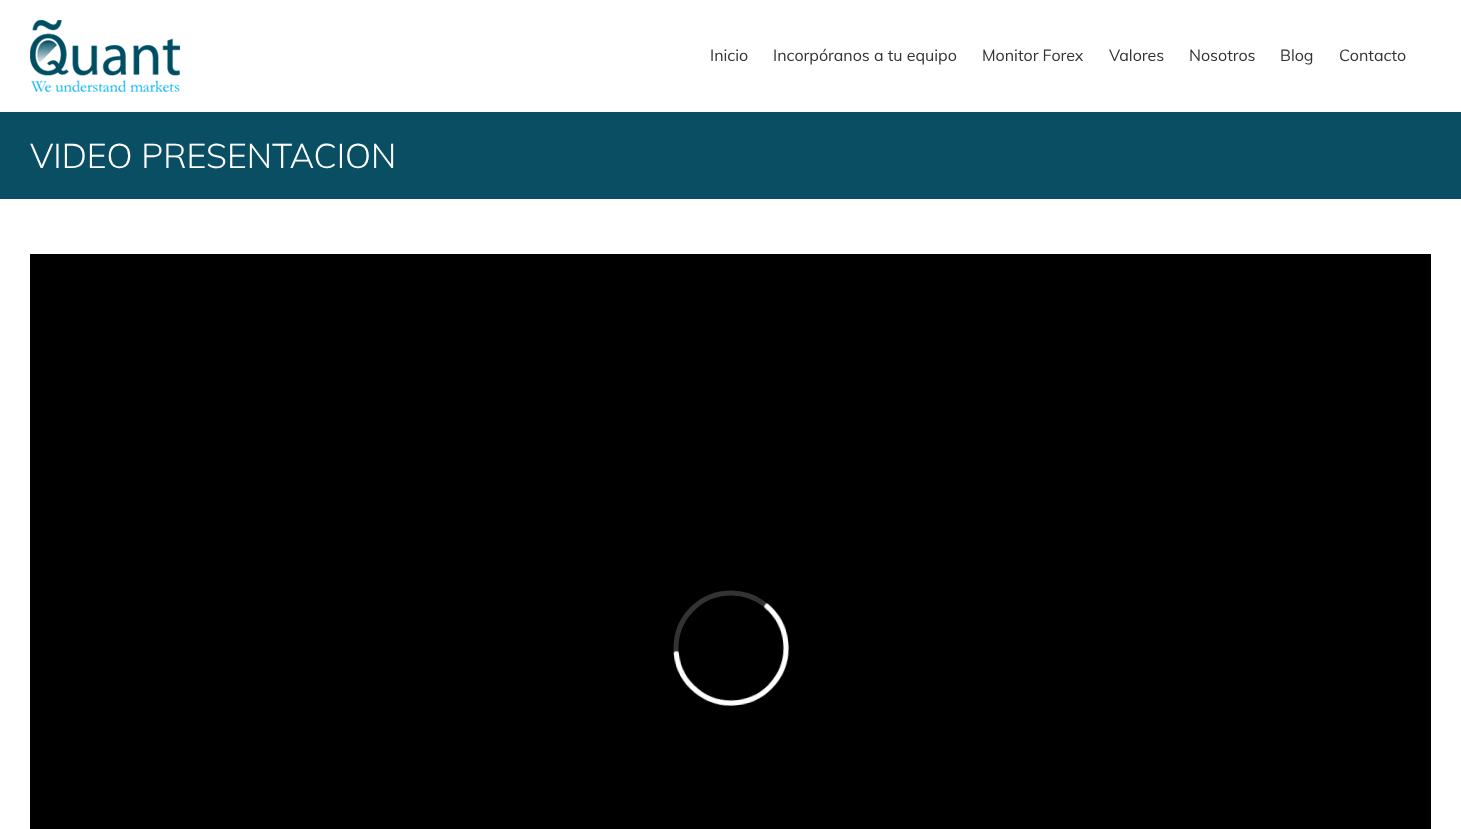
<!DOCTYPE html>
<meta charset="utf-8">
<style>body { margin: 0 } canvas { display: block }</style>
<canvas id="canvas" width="1461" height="829"></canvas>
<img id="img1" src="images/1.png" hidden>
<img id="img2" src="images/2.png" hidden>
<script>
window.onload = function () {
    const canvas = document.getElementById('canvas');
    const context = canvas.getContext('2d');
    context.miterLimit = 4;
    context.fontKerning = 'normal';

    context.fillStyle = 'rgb(255, 255, 255)';
    context.fillRect(0, 0, 1461, 829);
    context.drawImage(document.getElementById('img1'), 30, 20, 150, 72);
    context.fillStyle = 'rgb(9, 78, 99)';
    context.fillRect(0, 112, 1461, 87);
    context.drawImage(document.getElementById('img2'), 30, 254, 1401, 575);
    context.font = '16px Muli';
    context.fillStyle = 'rgb(51, 51, 51)';
    context.fillText('Inicio', 710, 61);
    context.fillText('Incorpóranos a tu equipo', 773, 61);
    context.fillText('Monitor Forex', 982, 61);
    context.fillText('Valores', 1109, 61);
    context.fillText('Nosotros', 1189, 61);
    context.fillText('Blog', 1280, 61);
    context.fillText('Contacto', 1339, 61);
    context.font = '300 34px Muli';
    context.fillStyle = 'rgb(255, 255, 255)';
    context.fillText('VIDEO PRESENTACION', 30, 168);
};
</script>
